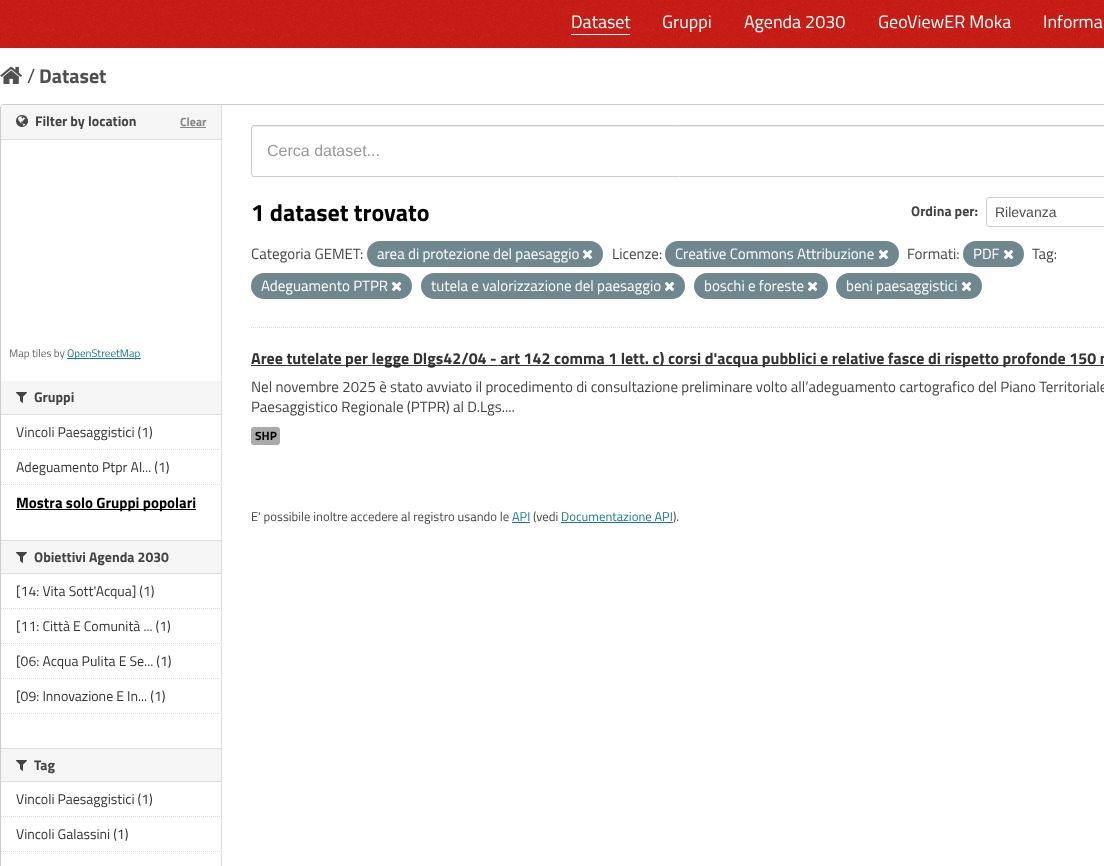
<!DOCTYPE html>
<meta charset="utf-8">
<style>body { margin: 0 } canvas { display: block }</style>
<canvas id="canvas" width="1104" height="866"></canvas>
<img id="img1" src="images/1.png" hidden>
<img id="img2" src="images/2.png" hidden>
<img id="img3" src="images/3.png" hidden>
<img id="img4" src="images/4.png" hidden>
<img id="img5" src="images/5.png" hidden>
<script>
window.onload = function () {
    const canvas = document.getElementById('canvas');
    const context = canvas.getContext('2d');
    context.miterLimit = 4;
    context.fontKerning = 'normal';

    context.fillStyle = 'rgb(255, 255, 255)';
    context.fillRect(0, 0, 1104, 866);
    context.fillStyle = 'rgb(203, 29, 21)';
    context.fillRect(0, 0, 1104, 48);
    context.drawImage(document.getElementById('img1'), 0, 0, 1104, 48);
    context.fillStyle = 'rgb(255, 255, 255)';
    context.fillRect(571, 34, 59, 1);
    context.drawImage(document.getElementById('img2'), 0, 66, 22, 18);
    context.fillStyle = 'rgb(221, 221, 221)';
    context.fillRect(221, 104, 1, 762);
    context.beginPath();
    context.roundRect(0.5, 104.5, 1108, 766, 3.5);
    context.strokeStyle = 'rgb(204, 204, 204)';
    context.stroke();
    context.fillStyle = 'rgb(246, 246, 246)';
    context.beginPath();
    context.roundRect(1, 105, 220, 35, [3, 0, 0, 0]);
    context.fill();
    context.fillStyle = 'rgb(221, 221, 221)';
    context.fillRect(1, 139, 220, 1);
    context.drawImage(document.getElementById('img3'), 16, 115, 12, 12);
    context.fillStyle = 'rgb(136, 136, 136)';
    context.fillRect(180, 127, 26, 1);
    context.fillStyle = 'rgb(24, 119, 148)';
    context.fillRect(67, 358, 74, 1);
    context.fillStyle = 'rgb(246, 246, 246)';
    context.beginPath();
    context.roundRect(1, 381, 220, 34, [3, 0, 0, 0]);
    context.fill();
    context.fillStyle = 'rgb(221, 221, 221)';
    context.fillRect(1, 414, 220, 1);
    context.drawImage(document.getElementById('img4'), 16, 392, 11, 11);
    context.beginPath();
    context.moveTo(1, 449.5);
    context.lineTo(221, 449.5);
    context.strokeStyle = 'rgb(221, 221, 221)';
    context.setLineDash([1, 1]);
    context.stroke();
    context.beginPath();
    context.moveTo(1, 484.5);
    context.lineTo(221, 484.5);
    context.stroke();
    context.fillStyle = 'rgb(0, 0, 0)';
    context.fillRect(16, 509, 180, 1);
    context.fillStyle = 'rgb(246, 246, 246)';
    context.fillRect(1, 541, 220, 32);
    context.fillStyle = 'rgb(221, 221, 221)';
    context.fillRect(1, 540, 220, 1);
    context.fillRect(1, 573, 220, 1);
    context.drawImage(document.getElementById('img4'), 16, 552, 11, 11);
    context.beginPath();
    context.moveTo(1, 608.5);
    context.lineTo(221, 608.5);
    context.stroke();
    context.beginPath();
    context.moveTo(1, 643.5);
    context.lineTo(221, 643.5);
    context.stroke();
    context.beginPath();
    context.moveTo(1, 678.5);
    context.lineTo(221, 678.5);
    context.stroke();
    context.beginPath();
    context.moveTo(1, 713.5);
    context.lineTo(221, 713.5);
    context.stroke();
    context.fillStyle = 'rgb(246, 246, 246)';
    context.fillRect(1, 749, 220, 32);
    context.fillStyle = 'rgb(221, 221, 221)';
    context.fillRect(1, 748, 220, 1);
    context.fillRect(1, 781, 220, 1);
    context.drawImage(document.getElementById('img4'), 16, 760, 11, 11);
    context.beginPath();
    context.moveTo(1, 816.5);
    context.lineTo(221, 816.5);
    context.stroke();
    context.beginPath();
    context.moveTo(1, 851.5);
    context.lineTo(221, 851.5);
    context.stroke();
    context.beginPath();
    context.moveTo(251, 327.5);
    context.lineTo(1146, 327.5);
    context.stroke();
    context.fillStyle = 'rgb(236, 236, 236)';
    context.beginPath();
    context.moveTo(254, 127);
    context.lineTo(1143, 127);
    context.bezierCurveTo(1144, 127, 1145, 128, 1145, 129);
    context.bezierCurveTo(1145, 128, 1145, 126, 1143, 126);
    context.lineTo(254, 126);
    context.bezierCurveTo(252, 126, 252, 128, 252, 129);
    context.bezierCurveTo(252, 128, 253, 127, 254, 127);
    context.closePath();
    context.fill();
    context.beginPath();
    context.roundRect(251.5, 125.5, 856, 51, 2.5);
    context.strokeStyle = 'rgb(204, 204, 204)';
    context.setLineDash([]);
    context.stroke();
    context.beginPath();
    context.roundRect(986.5, 197.5, 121, 29, 2.5);
    context.stroke();
    context.fillStyle = 'rgb(111, 136, 144)';
    context.beginPath();
    context.roundRect(367, 241, 236, 26, 13);
    context.fill();
    context.drawImage(document.getElementById('img5'), 582, 249, 11, 11);
    context.beginPath();
    context.roundRect(665, 241, 234, 26, 13);
    context.fill();
    context.drawImage(document.getElementById('img5'), 878, 249, 11, 11);
    context.beginPath();
    context.roundRect(963, 241, 61, 26, 13);
    context.fill();
    context.drawImage(document.getElementById('img5'), 1003, 249, 11, 11);
    context.beginPath();
    context.roundRect(251, 273, 161, 26, 13);
    context.fill();
    context.drawImage(document.getElementById('img5'), 391, 281, 11, 11);
    context.beginPath();
    context.roundRect(421, 273, 264, 26, 13);
    context.fill();
    context.drawImage(document.getElementById('img5'), 664, 281, 11, 11);
    context.beginPath();
    context.roundRect(694, 273, 134, 26, 13);
    context.fill();
    context.drawImage(document.getElementById('img5'), 807, 281, 11, 11);
    context.beginPath();
    context.roundRect(836, 273, 146, 26, 13);
    context.fill();
    context.drawImage(document.getElementById('img5'), 961, 281, 11, 11);
    context.fillStyle = 'rgb(51, 51, 51)';
    context.fillRect(251, 365, 853, 1);
    context.fillStyle = 'rgb(170, 170, 170)';
    context.beginPath();
    context.roundRect(251, 427, 29, 18, 3);
    context.fill();
    context.fillStyle = 'rgb(24, 119, 148)';
    context.fillRect(512, 522, 18, 1);
    context.fillRect(561, 522, 112, 1);
    context.font = '18px Titillium Web';
    context.fillStyle = 'rgb(255, 255, 255)';
    context.fillText('Dataset', 571, 28);
    context.fillText('Gruppi', 662, 28);
    context.fillText('Agenda 2030', 744, 28);
    context.fillText('GeoViewER Moka', 878, 28);
    context.fillText('Informa', 1043, 28);
    context.font = '20px Titillium Web';
    context.fillStyle = 'rgb(68, 68, 68)';
    context.fillText('/', 27, 83);
    context.font = 'bold 20px Titillium Web';
    context.fillStyle = 'rgb(80, 80, 80)';
    context.fillText('Dataset', 39, 83);
    context.font = 'bold 14px Titillium Web';
    context.fillStyle = 'rgb(68, 68, 68)';
    context.fillText('Filter by location', 35, 126);
    context.font = 'bold 12px Titillium Web';
    context.fillStyle = 'rgb(136, 136, 136)';
    context.fillText('Clear', 180, 126);
    context.font = '11px Titillium Web';
    context.fillStyle = 'rgb(102, 102, 102)';
    context.fillText('Map tiles by', 9, 357);
    context.fillStyle = 'rgb(24, 119, 148)';
    context.fillText('OpenStreetMap', 67, 357);
    context.font = 'bold 14px Titillium Web';
    context.fillStyle = 'rgb(68, 68, 68)';
    context.fillText('Gruppi', 34, 402);
    context.font = '14px Titillium Web';
    context.fillStyle = 'rgb(51, 51, 51)';
    context.fillText('Vincoli Paesaggistici (1)', 16, 437);
    context.fillText('Adeguamento Ptpr Al... (1)', 16, 472);
    context.font = 'bold 15px Titillium Web';
    context.fillStyle = 'rgb(0, 0, 0)';
    context.fillText('Mostra solo Gruppi popolari', 16, 508);
    context.font = 'bold 14px Titillium Web';
    context.fillStyle = 'rgb(68, 68, 68)';
    context.fillText('Obiettivi Agenda 2030', 34, 562);
    context.font = '14px Titillium Web';
    context.fillStyle = 'rgb(51, 51, 51)';
    context.fillText('[14: Vita Sott\'Acqua] (1)', 16, 596);
    context.fillText('[11: Città E Comunità ... (1)', 16, 631);
    context.fillText('[06: Acqua Pulita E Se... (1)', 16, 666);
    context.fillText('[09: Innovazione E In... (1)', 16, 701);
    context.font = 'bold 14px Titillium Web';
    context.fillStyle = 'rgb(68, 68, 68)';
    context.fillText('Tag', 34, 770);
    context.font = '14px Titillium Web';
    context.fillStyle = 'rgb(51, 51, 51)';
    context.fillText('Vincoli Paesaggistici (1)', 16, 804);
    context.fillText('Vincoli Galassini (1)', 16, 839);
    context.font = '16px Liberation Sans';
    context.fillStyle = 'rgb(153, 153, 153)';
    context.fillText('Cerca dataset...', 267, 156);
    context.font = 'bold 24px Titillium Web';
    context.fillStyle = 'rgb(0, 0, 0)';
    context.fillText('1 dataset trovato', 251, 221);
    context.font = 'bold 14px Titillium Web';
    context.fillStyle = 'rgb(68, 68, 68)';
    context.fillText('Ordina per:', 911, 216);
    context.font = '14px Liberation Sans';
    context.fillStyle = 'rgb(80, 80, 80)';
    context.fillText('Rilevanza', 995, 217);
    context.font = '15px Titillium Web';
    context.fillStyle = 'rgb(68, 68, 68)';
    context.fillText('Categoria GEMET:', 251, 259);
    context.fillStyle = 'rgb(255, 255, 255)';
    context.fillText('area di protezione del paesaggio', 377, 259);
    context.fillStyle = 'rgb(68, 68, 68)';
    context.fillText('Licenze:', 612, 259);
    context.fillStyle = 'rgb(255, 255, 255)';
    context.fillText('Creative Commons Attribuzione', 675, 259);
    context.fillStyle = 'rgb(68, 68, 68)';
    context.fillText('Formati:', 907, 259);
    context.fillStyle = 'rgb(255, 255, 255)';
    context.fillText('PDF', 973, 259);
    context.fillStyle = 'rgb(68, 68, 68)';
    context.fillText('Tag:', 1032, 259);
    context.fillStyle = 'rgb(255, 255, 255)';
    context.fillText('Adeguamento PTPR', 261, 291);
    context.fillText('tutela e valorizzazione del paesaggio', 431, 291);
    context.fillText('boschi e foreste', 704, 291);
    context.fillText('beni paesaggistici', 846, 291);
    context.font = 'bold 16px Titillium Web';
    context.fillStyle = 'rgb(51, 51, 51)';
    context.fillText('Aree tutelate per legge Dlgs42/04 - art 142 comma 1 lett. c) corsi d\'acqua pubblici e relative fasce di rispetto profonde 150 m', 251, 364);
    context.font = '15px Titillium Web';
    context.fillStyle = 'rgb(68, 68, 68)';
    context.fillText('Nel novembre 2025 è stato avviato il procedimento di consultazione preliminare volto all’adeguamento cartografico del Piano Territoriale', 251, 392);
    context.fillText('Paesaggistico Regionale (PTPR) al D.Lgs....', 251, 412);
    context.font = 'bold 12px Titillium Web';
    context.fillStyle = 'rgb(0, 0, 0)';
    context.fillText('SHP', 255, 440);
    context.font = '12.75px Titillium Web';
    context.fillStyle = 'rgb(68, 68, 68)';
    context.fillText('E\' possibile inoltre accedere al registro usando le', 251, 521);
    context.fillStyle = 'rgb(24, 119, 148)';
    context.fillText('API', 512, 521);
    context.fillStyle = 'rgb(68, 68, 68)';
    context.fillText('(vedi', 533, 521);
    context.fillStyle = 'rgb(24, 119, 148)';
    context.fillText('Documentazione API', 561, 521);
    context.fillStyle = 'rgb(68, 68, 68)';
    context.fillText(').', 673, 521);
};
</script>
